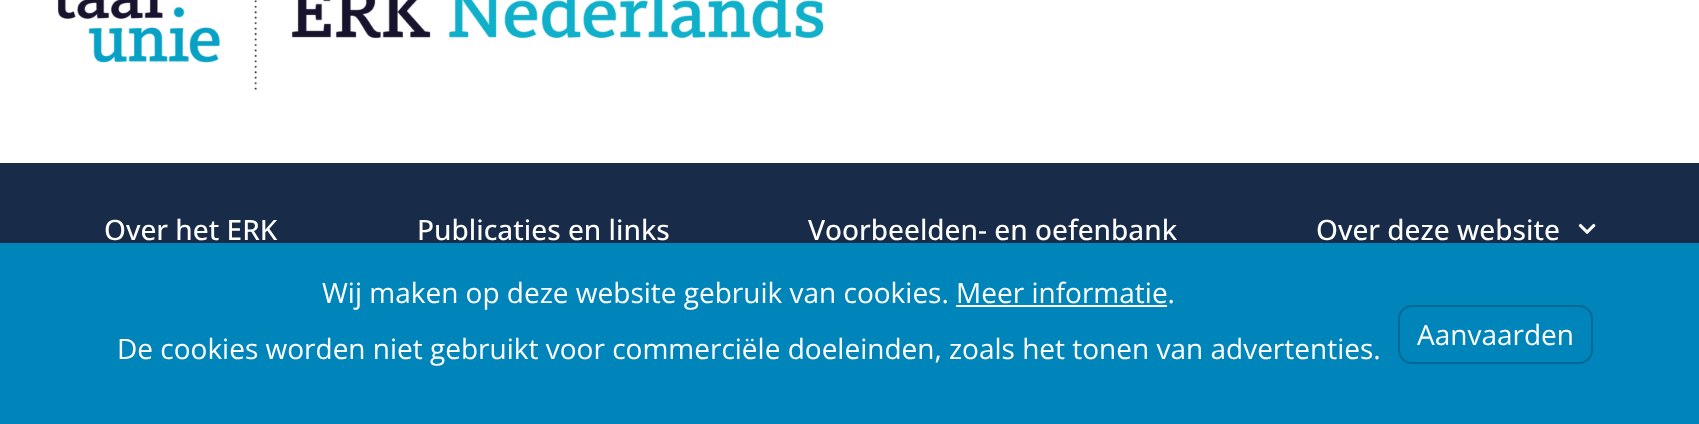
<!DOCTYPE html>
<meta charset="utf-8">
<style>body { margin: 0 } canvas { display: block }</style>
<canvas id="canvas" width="1699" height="424"></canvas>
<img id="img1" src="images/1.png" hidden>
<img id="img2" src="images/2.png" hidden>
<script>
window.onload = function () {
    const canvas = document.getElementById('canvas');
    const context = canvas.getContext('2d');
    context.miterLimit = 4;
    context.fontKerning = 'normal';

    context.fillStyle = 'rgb(255, 255, 255)';
    context.fillRect(0, 0, 1699, 424);
    context.drawImage(document.getElementById('img1'), 57, 0, 767, 90);
    context.fillStyle = 'rgb(24, 43, 73)';
    context.fillRect(0, 163, 1699, 80);
    context.drawImage(document.getElementById('img2'), 1578, 223, 18, 11);
    context.fillStyle = 'rgb(0, 133, 186)';
    context.fillRect(0, 243, 1699, 181);
    context.fillStyle = 'rgb(255, 255, 255)';
    context.fillRect(956, 305, 211, 2);
    context.beginPath();
    context.roundRect(1399, 306, 193, 57, 13);
    context.strokeStyle = 'rgb(0, 103, 153)';
    context.lineWidth = 2;
    context.stroke();
    context.font = '500 28px Open Sans';
    context.fillText('Over het ERK', 104, 240);
    context.fillText('Publicaties en links', 417, 240);
    context.fillText('Voorbeelden- en oefenbank', 808, 240);
    context.fillText('Over deze website', 1316, 240);
    context.font = '28px Open Sans';
    context.fillText('Wij maken op deze website gebruik van cookies. Meer informatie.', 322, 303);
    context.fillText('De cookies worden niet gebruikt voor commerciële doeleinden, zoals het tonen van advertenties.', 117, 359);
    context.fillText('Aanvaarden', 1417, 345);
};
</script>
